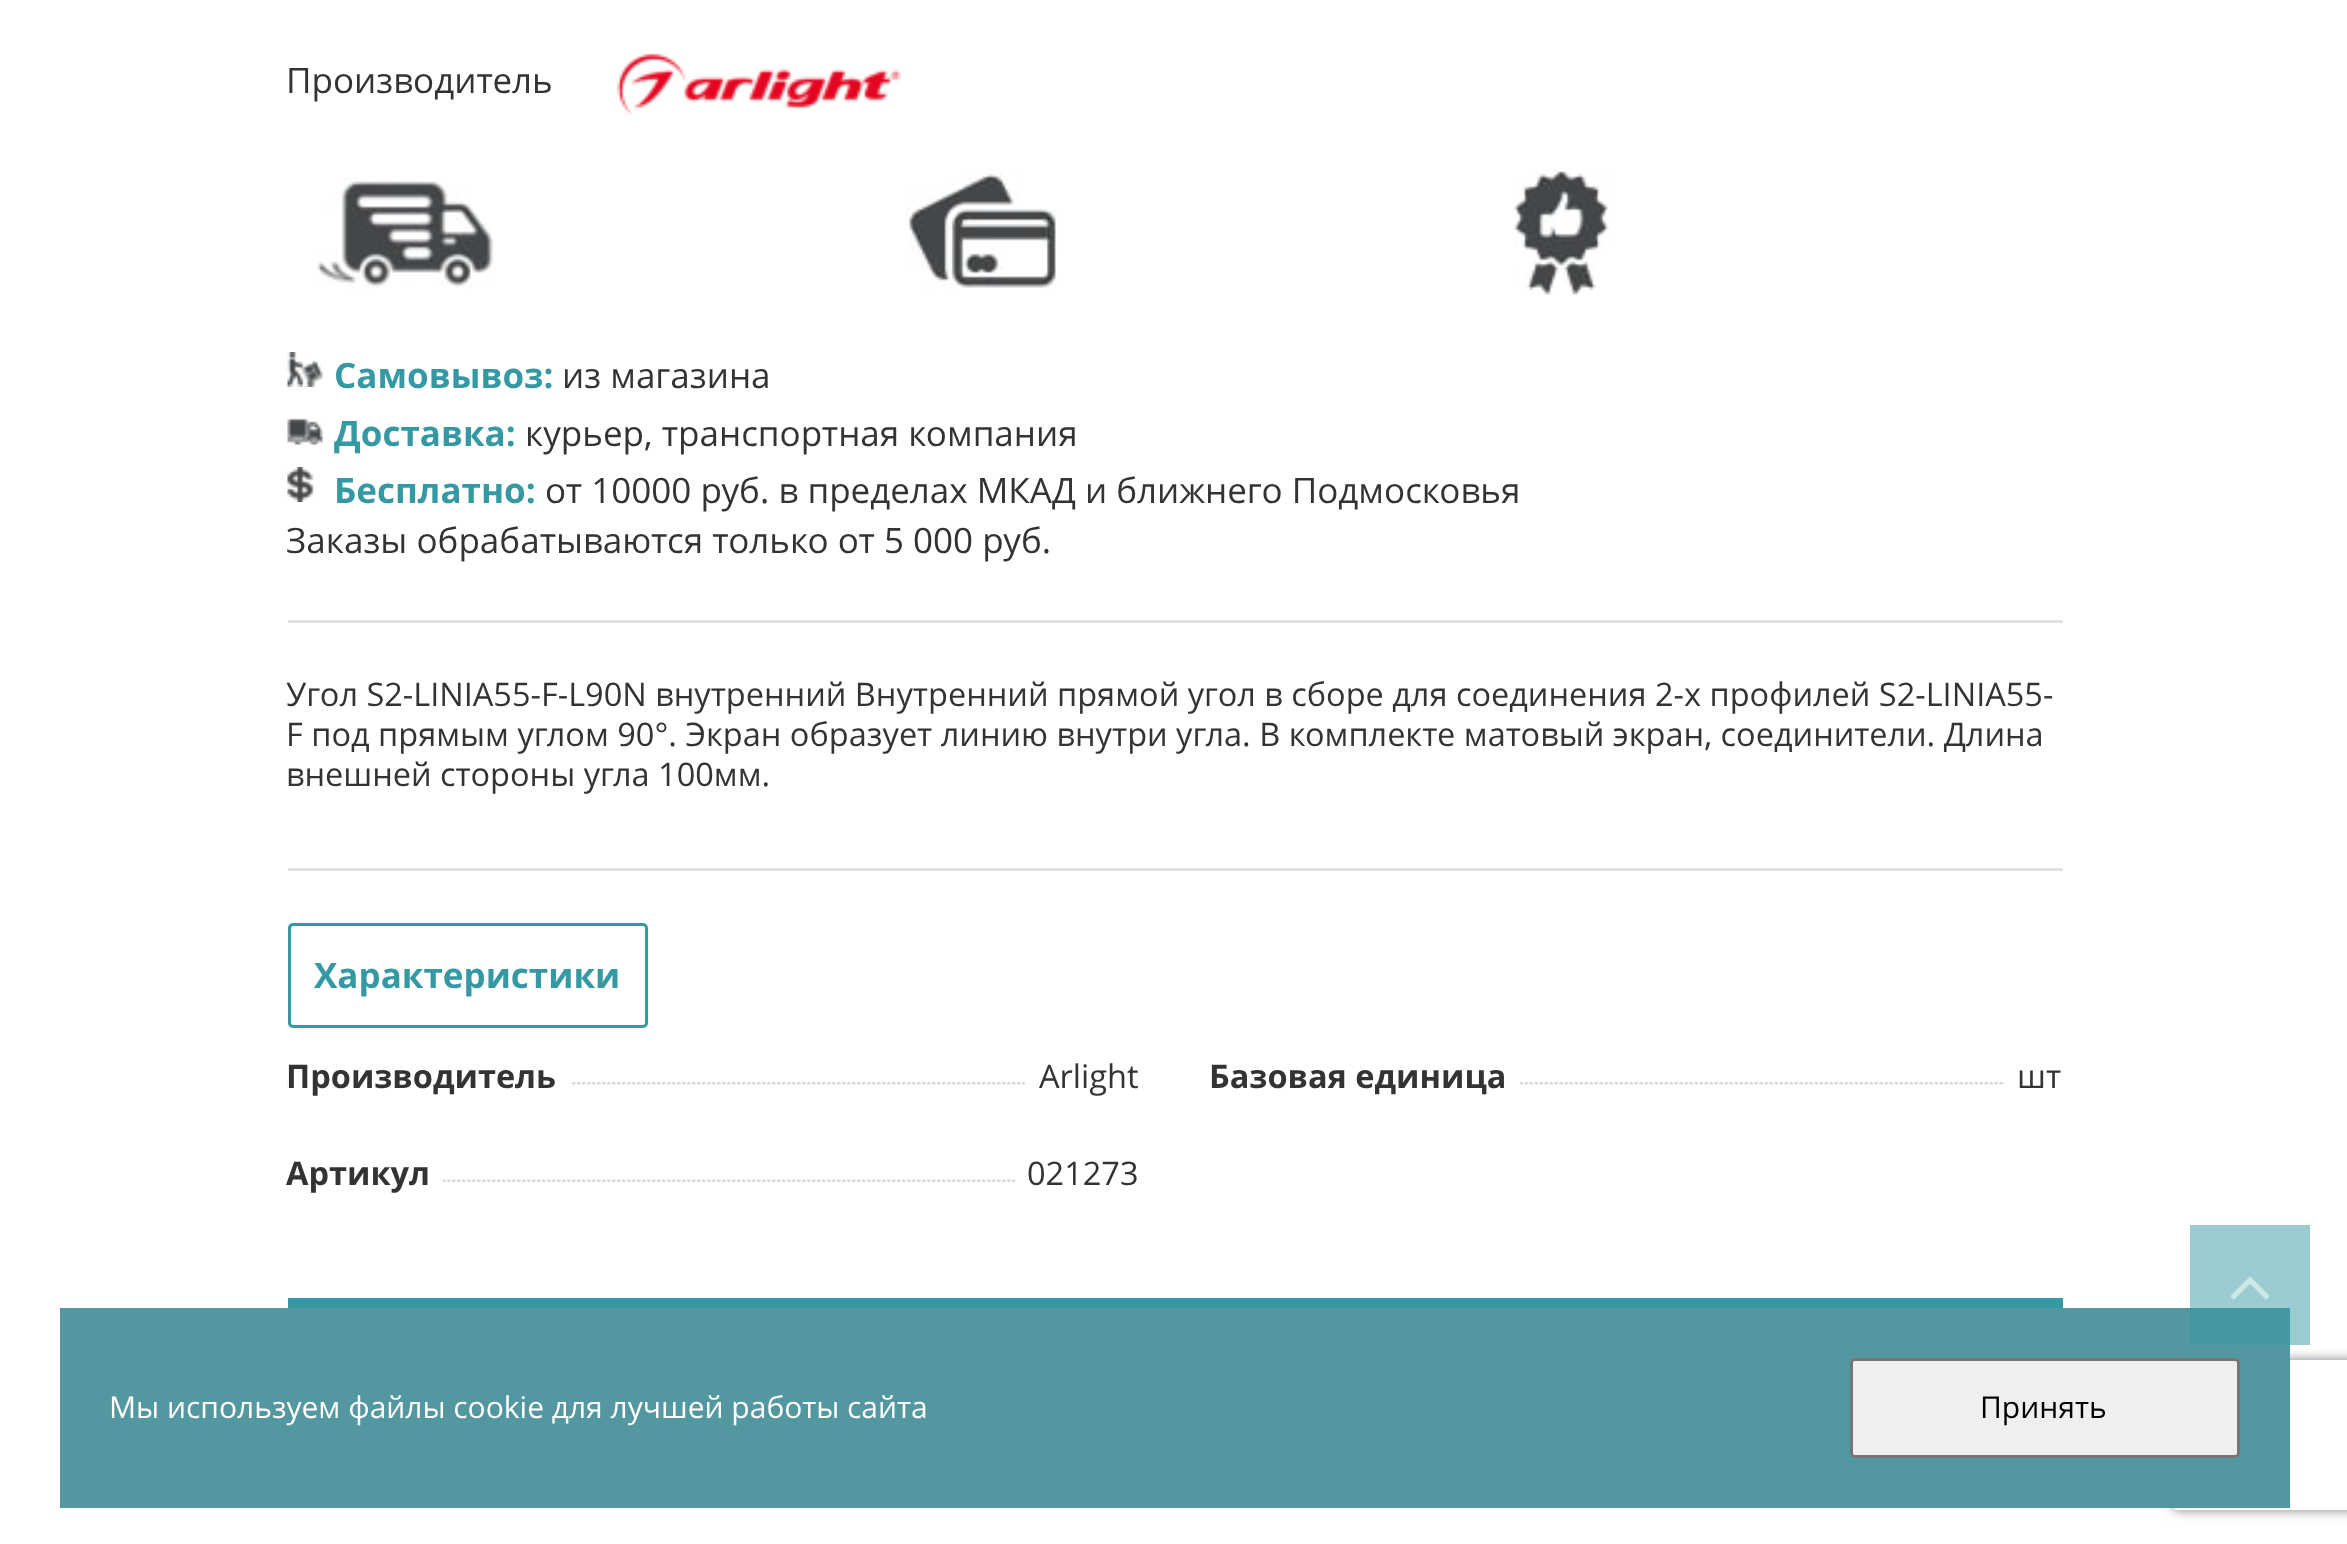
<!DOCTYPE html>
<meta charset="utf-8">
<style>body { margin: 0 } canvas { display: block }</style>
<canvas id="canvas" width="2347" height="1544"></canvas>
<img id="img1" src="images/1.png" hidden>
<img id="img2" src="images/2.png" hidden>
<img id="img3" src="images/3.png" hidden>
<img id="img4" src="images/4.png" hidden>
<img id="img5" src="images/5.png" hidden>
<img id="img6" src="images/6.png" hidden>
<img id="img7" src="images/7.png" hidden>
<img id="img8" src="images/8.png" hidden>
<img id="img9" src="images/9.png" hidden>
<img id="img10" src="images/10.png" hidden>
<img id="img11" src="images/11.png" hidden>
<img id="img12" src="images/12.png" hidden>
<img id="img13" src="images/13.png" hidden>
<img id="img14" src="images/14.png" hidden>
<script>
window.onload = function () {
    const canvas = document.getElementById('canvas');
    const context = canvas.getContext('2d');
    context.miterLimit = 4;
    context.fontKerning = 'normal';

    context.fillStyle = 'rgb(255, 255, 255)';
    context.fillRect(0, 0, 2347, 1544);
    context.fillStyle = 'rgb(154, 204, 209)';
    context.fillRect(2190, 1225, 120, 120);
    context.drawImage(document.getElementById('img1'), 616, 52, 285, 63);
    context.drawImage(document.getElementById('img2'), 316, 177, 178, 112);
    context.drawImage(document.getElementById('img3'), 905, 170, 152, 119);
    context.drawImage(document.getElementById('img4'), 1514, 169, 101, 126);
    context.drawImage(document.getElementById('img5'), 287, 352, 36, 35);
    context.drawImage(document.getElementById('img6'), 287, 418, 36, 27);
    context.drawImage(document.getElementById('img7'), 287, 467, 27, 35);
    context.fillStyle = 'rgb(225, 225, 225)';
    context.fillRect(288, 620, 1775, 3);
    context.fillRect(288, 868, 1775, 3);
    context.beginPath();
    context.roundRect(289.5, 924.5, 357, 102, 3.5);
    context.strokeStyle = 'rgb(53, 153, 163)';
    context.lineWidth = 3;
    context.stroke();
    context.drawImage(document.getElementById('img8'), 287, 1082, 426, 3);
    context.fillStyle = 'rgb(255, 255, 255)';
    context.fillRect(288, 1082, 282, 3);
    context.drawImage(document.getElementById('img9'), 712, 1082, 313, 3);
    context.drawImage(document.getElementById('img10'), 287, 1179, 426, 3);
    context.fillRect(288, 1179, 155, 3);
    context.drawImage(document.getElementById('img11'), 712, 1179, 303, 3);
    context.drawImage(document.getElementById('img12'), 1520, 1082, 115, 3);
    context.drawImage(document.getElementById('img13'), 1635, 1082, 370, 3);
    context.fillStyle = 'rgb(53, 153, 163)';
    context.fillRect(288, 1298, 1775, 10);
    context.drawImage(document.getElementById('img14'), 2230, 1276, 40, 24);
    context.save();
    context.beginPath();
    context.moveTo(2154, 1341);
    context.lineTo(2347, 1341);
    context.lineTo(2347, 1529);
    context.lineTo(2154, 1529);
    context.closePath();
    context.moveTo(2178, 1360);
    context.lineTo(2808, 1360);
    context.bezierCurveTo(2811, 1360, 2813, 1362, 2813, 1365);
    context.lineTo(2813, 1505);
    context.bezierCurveTo(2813, 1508, 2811, 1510, 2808, 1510);
    context.lineTo(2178, 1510);
    context.bezierCurveTo(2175, 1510, 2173, 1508, 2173, 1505);
    context.lineTo(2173, 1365);
    context.bezierCurveTo(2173, 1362, 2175, 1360, 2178, 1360);
    context.closePath();
    context.clip('evenodd');
    context.fillStyle = 'rgb(128, 128, 128)';
    context.filter = 'blur(6px)';
    context.beginPath();
    context.roundRect(2173, 1360, 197, 150, 5);
    context.fill();
    context.filter = 'none';
    context.restore();
    context.fillStyle = 'rgb(83, 151, 161)';
    context.fillRect(60, 1308, 2230, 200);
    context.fillStyle = 'rgb(68, 152, 162)';
    context.fillRect(2190, 1308, 100, 37);
    context.fillStyle = 'rgb(239, 239, 239)';
    context.beginPath();
    context.roundRect(1851.5, 1359.5, 387, 97, 3.5);
    context.fill();
    context.strokeStyle = 'rgb(118, 118, 118)';
    context.stroke();
    context.font = '35px Open Sans';
    context.fillStyle = 'rgb(51, 51, 51)';
    context.fillText('Производитель', 286, 93);
    context.font = 'bold 35px Open Sans';
    context.fillStyle = 'rgb(53, 153, 163)';
    context.fillText('Самовывоз:', 334, 388);
    context.font = '35px Open Sans';
    context.fillStyle = 'rgb(51, 51, 51)';
    context.fillText('из магазина', 562, 388);
    context.font = 'bold 35px Open Sans';
    context.fillStyle = 'rgb(53, 153, 163)';
    context.fillText('Доставка:', 334, 446);
    context.font = '35px Open Sans';
    context.fillStyle = 'rgb(51, 51, 51)';
    context.fillText('курьер, транспортная компания', 525, 446);
    context.font = 'bold 35px Open Sans';
    context.fillStyle = 'rgb(53, 153, 163)';
    context.fillText('Бесплатно:', 334, 503);
    context.font = '35px Open Sans';
    context.fillStyle = 'rgb(51, 51, 51)';
    context.fillText('от 10000 руб. в пределах МКАД и ближнего Подмосковья', 545, 503);
    context.fillText('Заказы обрабатываются только от 5 000 руб.', 286, 553);
    context.font = '32.5px Open Sans';
    context.fillText('Угол S2-LINIA55-F-L90N внутренний Внутренний прямой угол в сборе для соединения 2-х профилей S2-LINIA55-', 286, 706);
    context.fillText('F под прямым углом 90°. Экран образует линию внутри угла. В комплекте матовый экран, соединители. Длина', 286, 746);
    context.fillText('внешней стороны угла 100мм.', 286, 786);
    context.font = 'bold 35px Open Sans';
    context.fillStyle = 'rgb(53, 153, 163)';
    context.fillText('Характеристики', 314, 988);
    context.font = 'bold 32.5px Open Sans';
    context.fillStyle = 'rgb(51, 51, 51)';
    context.fillText('Производитель', 286, 1088);
    context.font = '32.5px Open Sans';
    context.fillText('Arlight', 1039, 1088);
    context.font = 'bold 32.5px Open Sans';
    context.fillText('Артикул', 286, 1185);
    context.font = '32.5px Open Sans';
    context.fillText('021273', 1027, 1185);
    context.font = 'bold 32.5px Open Sans';
    context.fillText('Базовая единица', 1209, 1088);
    context.font = '32.5px Open Sans';
    context.fillText('шт', 2017, 1088);
    context.font = '30px Open Sans';
    context.fillStyle = 'rgb(255, 255, 255)';
    context.fillText('Мы используем файлы cookie для лучшей работы сайта', 109, 1418);
    context.fillStyle = 'rgb(0, 0, 0)';
    context.fillText('Принять', 1980, 1418);
};
</script>
